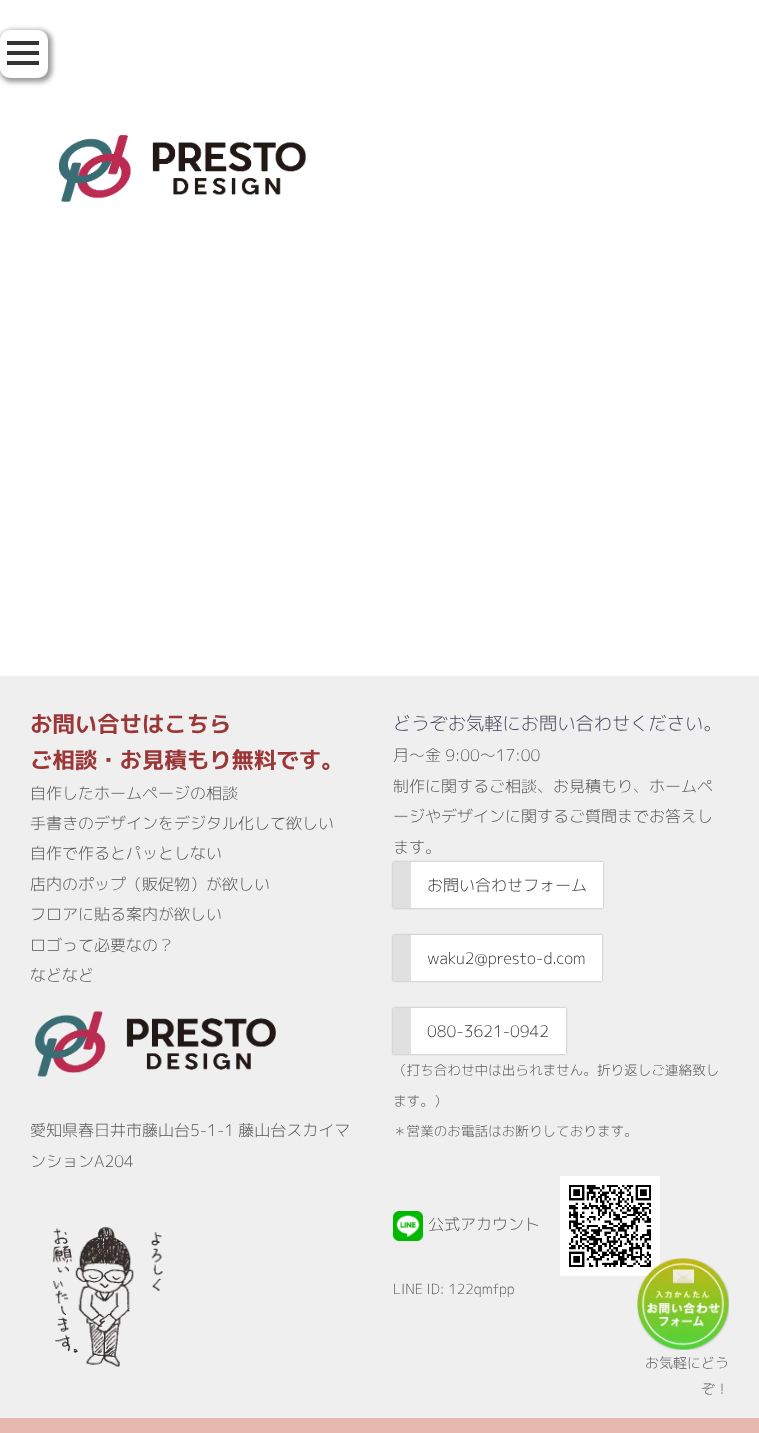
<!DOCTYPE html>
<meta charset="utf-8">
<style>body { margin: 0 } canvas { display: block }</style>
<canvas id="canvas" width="759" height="1433"></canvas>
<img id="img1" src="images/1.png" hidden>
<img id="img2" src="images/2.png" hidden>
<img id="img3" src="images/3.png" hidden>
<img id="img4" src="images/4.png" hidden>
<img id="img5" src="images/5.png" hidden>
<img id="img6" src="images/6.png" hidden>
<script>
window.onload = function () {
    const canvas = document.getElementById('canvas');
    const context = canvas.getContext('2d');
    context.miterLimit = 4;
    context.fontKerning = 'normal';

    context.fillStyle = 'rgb(255, 255, 255)';
    context.fillRect(0, 0, 759, 1433);
    context.fillStyle = 'rgb(153, 153, 151)';
    context.filter = 'blur(2.5px)';
    context.beginPath();
    context.roundRect(0, 30, 52, 52, 12);
    context.fill();
    context.filter = 'none';
    context.fillStyle = 'rgb(255, 255, 255)';
    context.beginPath();
    context.roundRect(0, 30, 48, 48, 10);
    context.fill();
    context.fillStyle = 'rgb(51, 51, 51)';
    context.fillRect(7, 41, 32, 4);
    context.fillRect(7, 51, 32, 4);
    context.fillRect(7, 61, 32, 4);
    context.drawImage(document.getElementById('img1'), 58, 135, 249, 67);
    context.fillStyle = 'rgb(239, 239, 239)';
    context.fillRect(0, 676, 759, 742);
    context.drawImage(document.getElementById('img2'), 35, 1011, 241, 66);
    context.drawImage(document.getElementById('img3'), 52, 1226, 111, 141);
    context.fillStyle = 'rgba(0, 0, 0, 0.3)';
    context.filter = 'blur(1px)';
    context.beginPath();
    context.rect(393, 862, 210, 46);
    context.fill();
    context.filter = 'none';
    context.fillStyle = 'rgb(255, 255, 255)';
    context.fillRect(411, 862, 192, 46);
    context.fillStyle = 'rgb(224, 224, 224)';
    context.fillRect(393, 862, 18, 46);
    context.fillStyle = 'rgba(0, 0, 0, 0.3)';
    context.filter = 'blur(1px)';
    context.beginPath();
    context.rect(393, 935, 209, 46);
    context.fill();
    context.filter = 'none';
    context.fillStyle = 'rgb(255, 255, 255)';
    context.fillRect(411, 935, 191, 46);
    context.fillStyle = 'rgb(224, 224, 224)';
    context.fillRect(393, 935, 18, 46);
    context.fillStyle = 'rgba(0, 0, 0, 0.3)';
    context.filter = 'blur(1px)';
    context.beginPath();
    context.rect(393, 1008, 173, 46);
    context.fill();
    context.filter = 'none';
    context.fillStyle = 'rgb(255, 255, 255)';
    context.fillRect(411, 1008, 155, 46);
    context.fillStyle = 'rgb(224, 224, 224)';
    context.fillRect(393, 1008, 18, 46);
    context.drawImage(document.getElementById('img4'), 393, 1211, 30, 30);
    context.drawImage(document.getElementById('img5'), 560, 1176, 100, 100);
    context.fillStyle = 'rgb(230, 184, 175)';
    context.fillRect(0, 1418, 759, 15);
    context.drawImage(document.getElementById('img6'), 637, 1258, 92, 92);
    context.font = 'bold 22.4px "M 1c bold"';
    context.fillStyle = 'rgb(156, 55, 55)';
    context.fillText('お問い合せはこちら', 30, 732);
    context.fillText('ご相談・お見積もり無料です。', 30, 768);
    context.font = '300 16px "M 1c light"';
    context.fillStyle = 'rgb(85, 85, 85)';
    context.fillText('自作したホームページの相談', 30, 799);
    context.fillText('手書きのデザインをデジタル化して欲しい', 30, 829);
    context.fillText('自作で作るとパッとしない', 30, 859);
    context.fillText('店内のポップ（販促物）が欲しい', 30, 890);
    context.fillText('フロアに貼る案内が欲しい', 30, 920);
    context.fillText('ロゴって必要なの？', 30, 951);
    context.fillText('などなど', 30, 981);
    context.fillText('愛知県春日井市藤山台5-1-1 藤山台スカイマ', 30, 1136);
    context.fillText('ンションA204', 30, 1167);
    context.font = '300 18.25px "M 1c light"';
    context.fillStyle = 'rgb(68, 68, 89)';
    context.fillText('どうぞお気軽にお問い合わせください。', 393, 730);
    context.font = '300 16px "M 1c light"';
    context.fillStyle = 'rgb(85, 85, 85)';
    context.fillText('月〜金 9:00〜17:00', 393, 761);
    context.fillText('制作に関するご相談、お見積もり、ホームペ', 393, 792);
    context.fillText('ージやデザインに関するご質問までお答えし', 393, 822);
    context.fillText('ます。', 393, 853);
    context.fillStyle = 'rgb(51, 51, 51)';
    context.fillText('お問い合わせフォーム', 427, 891);
    context.fillText('waku2@presto-d.com', 427, 964);
    context.fillText('080-3621-0942', 427, 1037);
    context.font = '300 13.6px "M 1c light"';
    context.fillStyle = 'rgb(85, 85, 85)';
    context.fillText('（打ち合わせ中は出られません。折り返しご連絡致し', 393, 1075);
    context.fillText('ます。）', 393, 1106);
    context.fillText('＊営業のお電話はお断りしております。', 393, 1136);
    context.font = '300 16px "M 1c light"';
    context.fillText('公式アカウント', 428, 1230);
    context.font = '300 14px "M 1c light"';
    context.fillText('LINE ID: 122qmfpp', 393, 1294);
    context.fillText('お気軽にどう', 645, 1368);
    context.fillText('ぞ！', 701, 1394);
};
</script>
